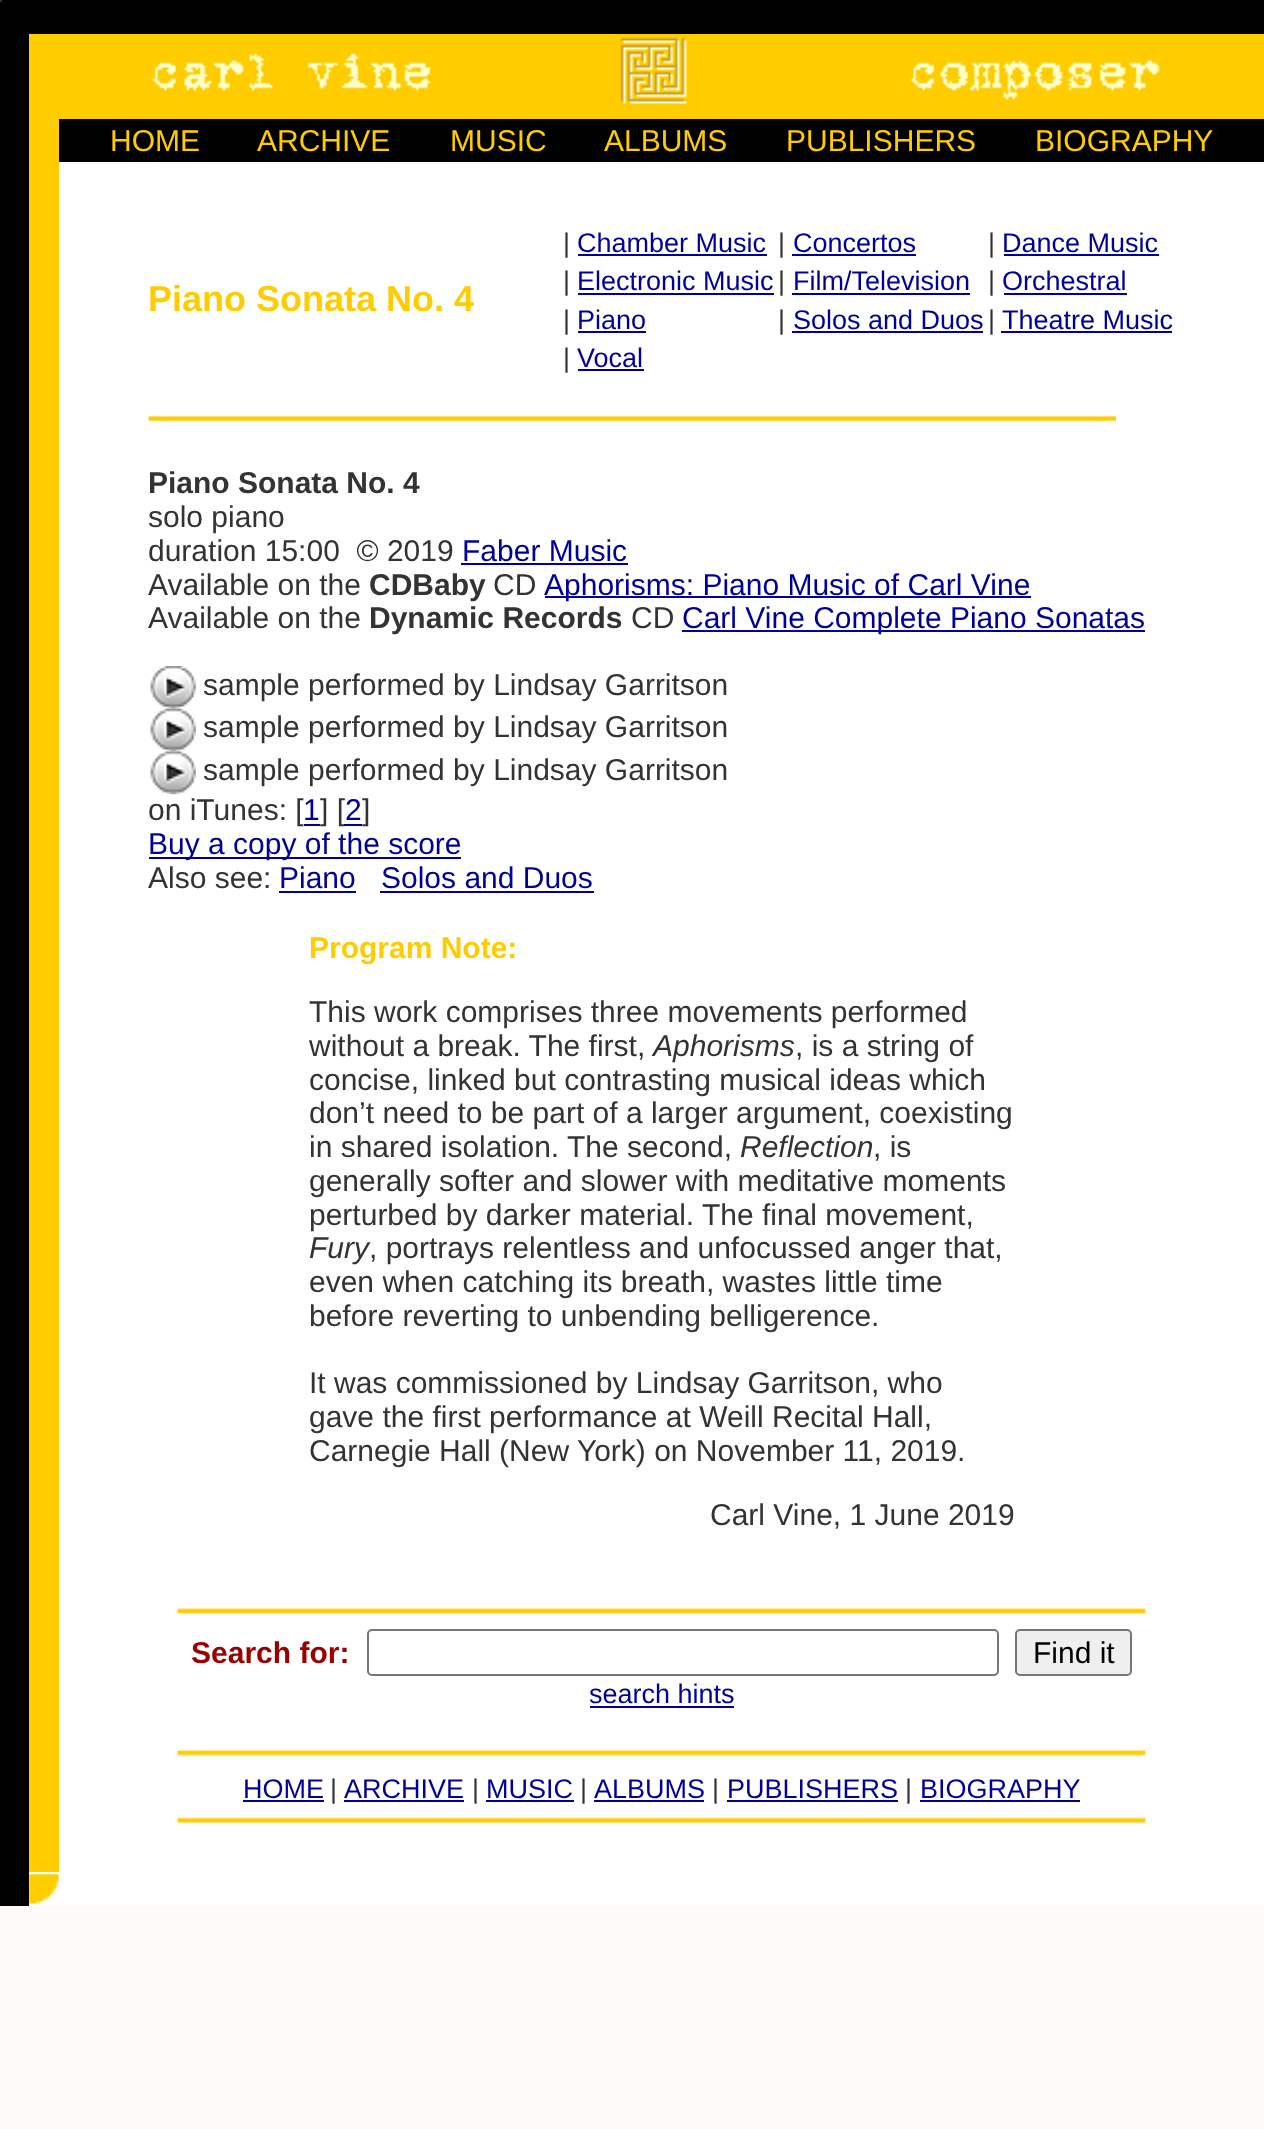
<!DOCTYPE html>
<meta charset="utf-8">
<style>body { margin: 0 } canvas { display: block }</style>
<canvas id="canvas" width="1264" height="2129"></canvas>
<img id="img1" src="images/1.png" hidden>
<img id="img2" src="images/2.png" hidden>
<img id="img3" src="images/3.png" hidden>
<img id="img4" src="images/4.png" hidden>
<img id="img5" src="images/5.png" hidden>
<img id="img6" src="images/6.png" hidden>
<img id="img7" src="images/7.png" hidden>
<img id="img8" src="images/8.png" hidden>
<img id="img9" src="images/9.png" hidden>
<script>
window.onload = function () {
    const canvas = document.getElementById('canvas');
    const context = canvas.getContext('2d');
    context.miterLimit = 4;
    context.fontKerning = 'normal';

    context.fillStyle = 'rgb(255, 250, 250)';
    context.fillRect(0, 0, 1264, 2129);
    context.fillStyle = 'rgb(0, 0, 0)';
    context.fillRect(0, 0, 1264, 34);
    context.fillStyle = 'rgb(51, 51, 51)';
    context.fillRect(0, 0, 2, 2);
    context.fillStyle = 'rgb(0, 0, 0)';
    context.fillRect(0, 34, 29, 1872);
    context.fillStyle = 'rgb(255, 204, 0)';
    context.fillRect(29, 34, 1235, 85);
    context.drawImage(document.getElementById('img1'), 152, 37, 1008, 68);
    context.fillRect(29, 119, 30, 1753);
    context.fillStyle = 'rgb(0, 0, 0)';
    context.fillRect(59, 119, 1205, 43);
    context.fillStyle = 'rgb(255, 255, 255)';
    context.fillRect(59, 162, 1205, 1710);
    context.fillStyle = 'rgb(0, 0, 153)';
    context.fillRect(578, 254, 189, 2);
    context.fillRect(792, 254, 124, 2);
    context.fillRect(1004, 254, 155, 2);
    context.fillRect(578, 293, 196, 2);
    context.fillRect(792, 293, 178, 2);
    context.fillRect(1004, 293, 123, 2);
    context.fillRect(578, 331, 68, 2);
    context.fillRect(792, 331, 191, 2);
    context.fillRect(1001, 331, 171, 2);
    context.fillRect(578, 369, 66, 2);
    context.drawImage(document.getElementById('img2'), 148, 415, 968, 7);
    context.fillRect(461, 563, 167, 2);
    context.fillRect(545, 596, 486, 2);
    context.fillRect(682, 630, 463, 2);
    context.drawImage(document.getElementById('img3'), 150, 666, 46, 43);
    context.drawImage(document.getElementById('img4'), 150, 708, 46, 44);
    context.drawImage(document.getElementById('img5'), 150, 751, 46, 44);
    context.fillRect(304, 824, 16, 2);
    context.fillRect(149, 857, 312, 2);
    context.fillRect(279, 891, 77, 2);
    context.fillRect(380, 891, 214, 2);
    context.drawImage(document.getElementById('img6'), 177, 1608, 969, 6);
    context.beginPath();
    context.roundRect(368, 1630, 630, 45, 4);
    context.strokeStyle = 'rgb(118, 118, 118)';
    context.lineWidth = 2;
    context.stroke();
    context.fillStyle = 'rgb(239, 239, 239)';
    context.beginPath();
    context.roundRect(1016, 1630, 115, 45, 4);
    context.fill();
    context.stroke();
    context.fillStyle = 'rgb(0, 0, 153)';
    context.fillRect(590, 1706, 144, 2);
    context.drawImage(document.getElementById('img7'), 177, 1750, 969, 6);
    context.fillRect(243, 1800, 81, 2);
    context.fillRect(344, 1800, 120, 2);
    context.fillRect(486, 1800, 88, 2);
    context.fillRect(594, 1800, 110, 2);
    context.fillRect(727, 1800, 171, 2);
    context.fillRect(920, 1800, 160, 2);
    context.drawImage(document.getElementById('img8'), 177, 1817, 969, 7);
    context.fillStyle = 'rgb(255, 255, 255)';
    context.fillRect(29, 1872, 1235, 34);
    context.drawImage(document.getElementById('img9'), 29, 1874, 30, 30);
    context.font = '30px Liberation Sans';
    context.fillStyle = 'rgb(255, 204, 0)';
    context.fillText('HOME', 110, 151);
    context.fillText('ARCHIVE', 257, 151);
    context.fillText('MUSIC', 450, 151);
    context.fillText('ALBUMS', 604, 151);
    context.fillText('PUBLISHERS', 786, 151);
    context.fillText('BIOGRAPHY', 1035, 151);
    context.font = 'bold 36px Liberation Sans';
    context.fillText('Piano Sonata No. 4', 148, 311);
    context.font = '27px Liberation Sans';
    context.fillStyle = 'rgb(51, 51, 51)';
    context.fillText('|', 563, 252);
    context.fillStyle = 'rgb(0, 0, 153)';
    context.fillText('Chamber Music', 577, 252);
    context.fillStyle = 'rgb(51, 51, 51)';
    context.fillText('|', 778, 252);
    context.fillStyle = 'rgb(0, 0, 153)';
    context.fillText('Concertos', 793, 252);
    context.fillStyle = 'rgb(51, 51, 51)';
    context.fillText('|', 988, 252);
    context.fillStyle = 'rgb(0, 0, 153)';
    context.fillText('Dance Music', 1002, 252);
    context.fillStyle = 'rgb(51, 51, 51)';
    context.fillText('|', 563, 290);
    context.fillStyle = 'rgb(0, 0, 153)';
    context.fillText('Electronic Music', 577, 290);
    context.fillStyle = 'rgb(51, 51, 51)';
    context.fillText('|', 778, 290);
    context.fillStyle = 'rgb(0, 0, 153)';
    context.fillText('Film/Television', 793, 290);
    context.fillStyle = 'rgb(51, 51, 51)';
    context.fillText('|', 988, 290);
    context.fillStyle = 'rgb(0, 0, 153)';
    context.fillText('Orchestral', 1002, 290);
    context.fillStyle = 'rgb(51, 51, 51)';
    context.fillText('|', 563, 329);
    context.fillStyle = 'rgb(0, 0, 153)';
    context.fillText('Piano', 577, 329);
    context.fillStyle = 'rgb(51, 51, 51)';
    context.fillText('|', 778, 329);
    context.fillStyle = 'rgb(0, 0, 153)';
    context.fillText('Solos and Duos', 793, 329);
    context.fillStyle = 'rgb(51, 51, 51)';
    context.fillText('|', 988, 329);
    context.fillStyle = 'rgb(0, 0, 153)';
    context.fillText('Theatre Music', 1002, 329);
    context.fillStyle = 'rgb(51, 51, 51)';
    context.fillText('|', 563, 367);
    context.fillStyle = 'rgb(0, 0, 153)';
    context.fillText('Vocal', 577, 367);
    context.font = 'bold 30px Liberation Sans';
    context.fillStyle = 'rgb(51, 51, 51)';
    context.fillText('Piano Sonata No. 4', 148, 493);
    context.font = '30px Liberation Sans';
    context.fillText('solo piano', 148, 527);
    context.fillText('duration 15:00  © 2019', 148, 561);
    context.fillStyle = 'rgb(0, 0, 153)';
    context.fillText('Faber Music', 462, 561);
    context.fillStyle = 'rgb(51, 51, 51)';
    context.fillText('Available on the', 148, 595);
    context.font = 'bold 30px Liberation Sans';
    context.fillText('CDBaby', 369, 595);
    context.font = '30px Liberation Sans';
    context.fillText('CD', 493, 595);
    context.fillStyle = 'rgb(0, 0, 153)';
    context.fillText('Aphorisms: Piano Music of Carl Vine', 544, 595);
    context.fillStyle = 'rgb(51, 51, 51)';
    context.fillText('Available on the', 148, 628);
    context.font = 'bold 30px Liberation Sans';
    context.fillText('Dynamic Records', 369, 628);
    context.font = '30px Liberation Sans';
    context.fillText('CD', 631, 628);
    context.fillStyle = 'rgb(0, 0, 153)';
    context.fillText('Carl Vine Complete Piano Sonatas', 682, 628);
    context.fillStyle = 'rgb(51, 51, 51)';
    context.fillText('sample performed by Lindsay Garritson', 203, 695);
    context.fillText('sample performed by Lindsay Garritson', 203, 737);
    context.fillText('sample performed by Lindsay Garritson', 203, 780);
    context.fillText('on iTunes: [', 148, 820);
    context.fillStyle = 'rgb(0, 0, 153)';
    context.fillText('1', 303, 820);
    context.fillStyle = 'rgb(51, 51, 51)';
    context.fillText('] [', 320, 820);
    context.fillStyle = 'rgb(0, 0, 153)';
    context.fillText('2', 345, 820);
    context.fillRect(344, 824, 18, 2);
    context.fillStyle = 'rgb(51, 51, 51)';
    context.fillText(']', 362, 820);
    context.fillStyle = 'rgb(0, 0, 153)';
    context.fillText('Buy a copy of the score', 148, 854);
    context.fillStyle = 'rgb(51, 51, 51)';
    context.fillText('Also see:', 148, 888);
    context.fillStyle = 'rgb(0, 0, 153)';
    context.fillText('Piano', 279, 888);
    context.fillText('Solos and Duos', 381, 888);
    context.font = 'bold 30px Liberation Sans';
    context.fillStyle = 'rgb(255, 204, 0)';
    context.fillText('Program Note:', 309, 958);
    context.font = '30px Liberation Sans';
    context.fillStyle = 'rgb(51, 51, 51)';
    context.fillText('This work comprises three movements performed', 309, 1022);
    context.fillText('without a break. The first,', 309, 1056);
    context.font = 'italic 30px Liberation Sans';
    context.fillText('Aphorisms', 653, 1056);
    context.font = '30px Liberation Sans';
    context.fillText(', is a string of', 795, 1056);
    context.fillText('concise, linked but contrasting musical ideas which', 309, 1090);
    context.fillText('don’t need to be part of a larger argument, coexisting', 309, 1123);
    context.fillText('in shared isolation. The second,', 309, 1157);
    context.font = 'italic 30px Liberation Sans';
    context.fillText('Reflection', 740, 1157);
    context.font = '30px Liberation Sans';
    context.fillText(', is', 873, 1157);
    context.fillText('generally softer and slower with meditative moments', 309, 1191);
    context.fillText('perturbed by darker material. The final movement,', 309, 1225);
    context.font = 'italic 30px Liberation Sans';
    context.fillText('Fury', 309, 1258);
    context.font = '30px Liberation Sans';
    context.fillText(', portrays relentless and unfocussed anger that,', 369, 1258);
    context.fillText('even when catching its breath, wastes little time', 309, 1292);
    context.fillText('before reverting to unbending belligerence.', 309, 1326);
    context.fillText('It was commissioned by Lindsay Garritson, who', 309, 1393);
    context.fillText('gave the first performance at Weill Recital Hall,', 309, 1427);
    context.fillText('Carnegie Hall (New York) on November 11, 2019.', 309, 1461);
    context.fillText('Carl Vine, 1 June 2019', 710, 1525);
    context.font = 'bold 30px Liberation Sans';
    context.fillStyle = 'rgb(153, 0, 0)';
    context.fillText('Search for:', 191, 1663);
    context.font = '30px Liberation Sans';
    context.fillStyle = 'rgb(0, 0, 0)';
    context.fillText('Find it', 1033, 1663);
    context.font = '27px Liberation Sans';
    context.fillStyle = 'rgb(0, 0, 153)';
    context.fillText('search hints', 589, 1703);
    context.fillText('HOME', 243, 1798);
    context.fillStyle = 'rgb(51, 51, 51)';
    context.fillText('|', 330, 1798);
    context.fillStyle = 'rgb(0, 0, 153)';
    context.fillText('ARCHIVE', 344, 1798);
    context.fillStyle = 'rgb(51, 51, 51)';
    context.fillText('|', 472, 1798);
    context.fillStyle = 'rgb(0, 0, 153)';
    context.fillText('MUSIC', 486, 1798);
    context.fillStyle = 'rgb(51, 51, 51)';
    context.fillText('|', 580, 1798);
    context.fillStyle = 'rgb(0, 0, 153)';
    context.fillText('ALBUMS', 594, 1798);
    context.fillStyle = 'rgb(51, 51, 51)';
    context.fillText('|', 712, 1798);
    context.fillStyle = 'rgb(0, 0, 153)';
    context.fillText('PUBLISHERS', 727, 1798);
    context.fillStyle = 'rgb(51, 51, 51)';
    context.fillText('|', 905, 1798);
    context.fillStyle = 'rgb(0, 0, 153)';
    context.fillText('BIOGRAPHY', 920, 1798);
};
</script>
